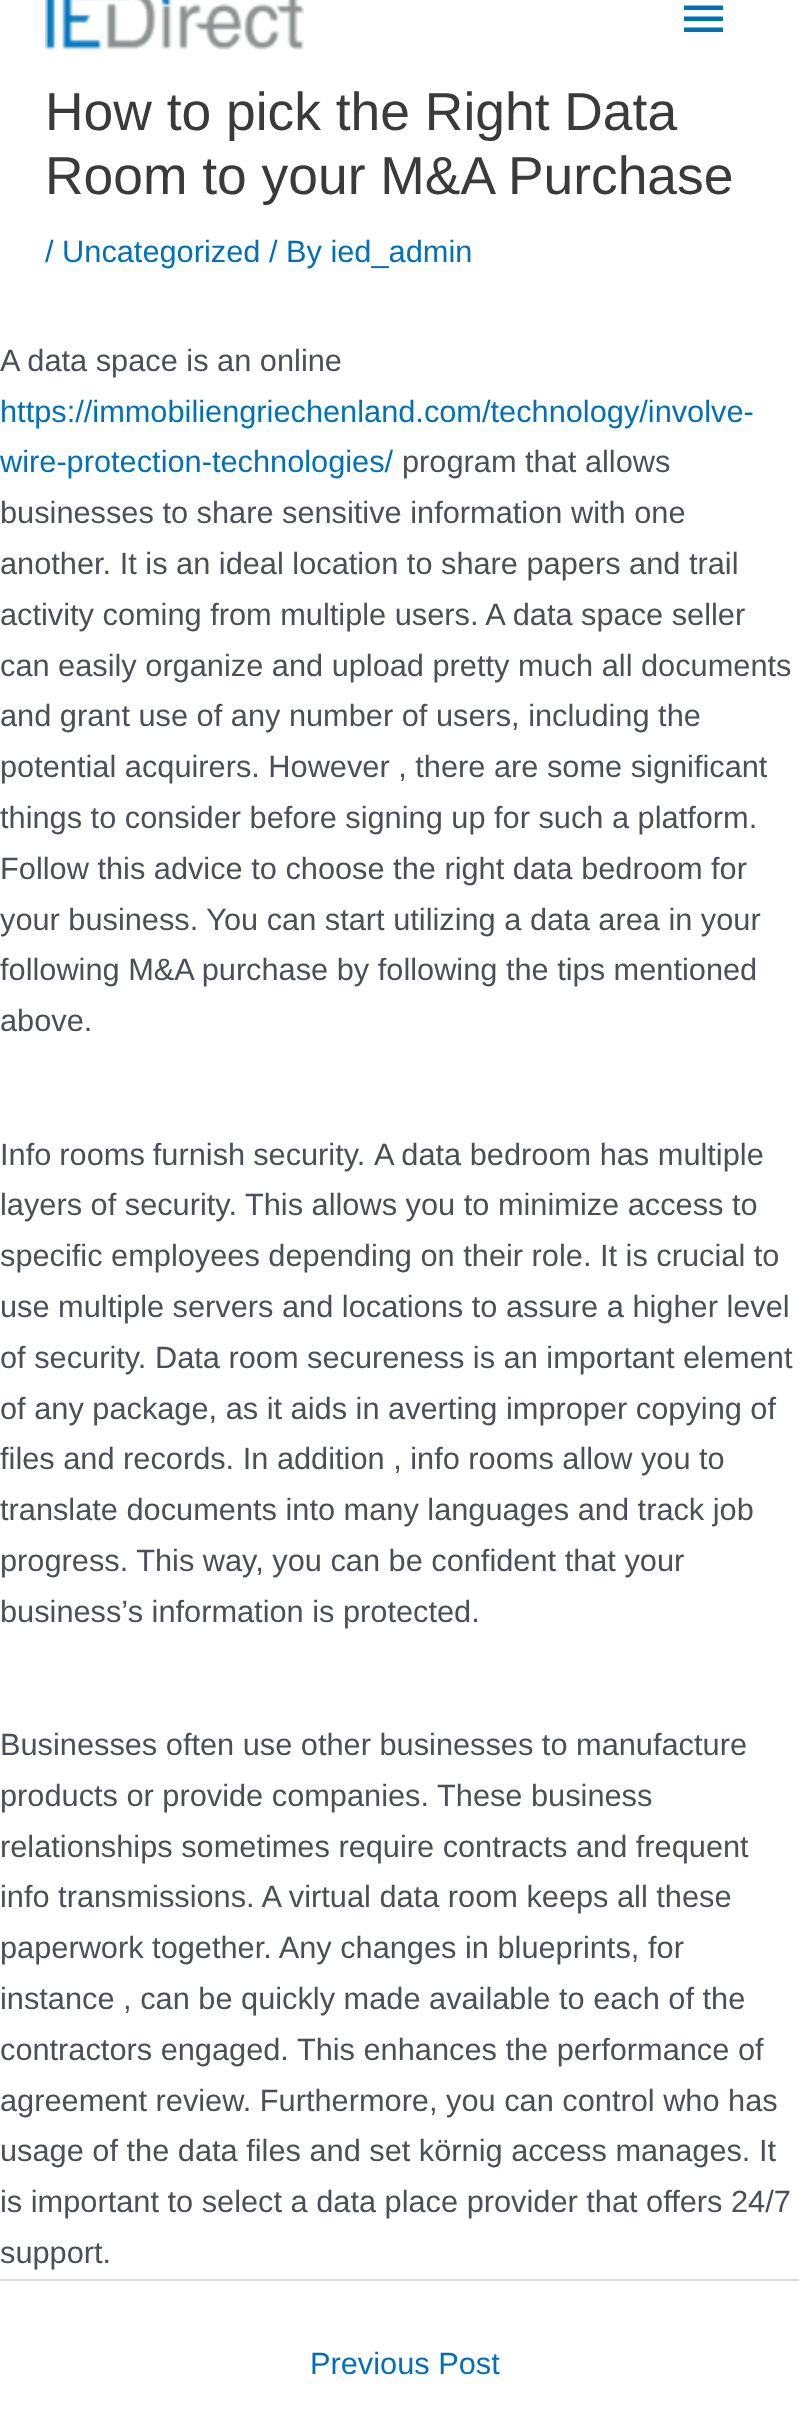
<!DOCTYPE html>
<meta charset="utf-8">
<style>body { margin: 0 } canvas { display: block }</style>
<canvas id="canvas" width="799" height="2424"></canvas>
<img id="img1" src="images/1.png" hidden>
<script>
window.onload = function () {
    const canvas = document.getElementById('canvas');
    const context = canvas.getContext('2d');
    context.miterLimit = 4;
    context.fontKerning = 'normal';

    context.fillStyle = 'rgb(255, 255, 255)';
    context.fillRect(0, 0, 799, 2424);
    context.drawImage(document.getElementById('img1'), 45, 0, 259, 50);
    context.fillStyle = 'rgb(1, 112, 185)';
    context.beginPath();
    context.moveTo(684, 5.5);
    context.lineTo(723, 5.5);
    context.lineTo(723, 10);
    context.lineTo(684, 10);
    context.closePath();
    context.moveTo(684, 21);
    context.lineTo(684, 16.5);
    context.lineTo(723, 16.5);
    context.lineTo(723, 21);
    context.closePath();
    context.moveTo(684, 32);
    context.lineTo(684, 27.5);
    context.lineTo(723, 27.5);
    context.lineTo(723, 32);
    context.closePath();
    context.fill();
    context.fillStyle = 'rgb(221, 221, 221)';
    context.fillRect(0, 2279, 799, 2);
    context.font = '53.4px Liberation Sans';
    context.fillStyle = 'rgb(58, 58, 58)';
    context.fillText('How to pick the Right Data', 45, 130);
    context.fillText('Room to your M&A Purchase', 45, 194);
    context.font = '30.75px Liberation Sans';
    context.fillStyle = 'rgb(1, 112, 185)';
    context.fillText('/ Uncategorized / By ied_admin', 45, 262);
    context.fillStyle = 'rgb(75, 79, 88)';
    context.fillText('A data space is an online', 0, 371);
    context.fillStyle = 'rgb(1, 112, 185)';
    context.fillText('https://immobiliengriechenland.com/technology/involve-', 0, 422);
    context.fillText('wire-protection-technologies/', 0, 472);
    context.fillStyle = 'rgb(75, 79, 88)';
    context.fillText('program that allows', 402, 472);
    context.fillText('businesses to share sensitive information', 0, 523);
    context.fillText('with one', 571, 523);
    context.fillText('another. It is an ideal location to share papers and trail', 0, 574);
    context.fillText('activity coming from multiple users. A data space seller', 0, 625);
    context.fillText('can easily organize and upload pretty much all documents', 0, 676);
    context.fillText('and grant use of any number of users, including the', 0, 726);
    context.fillText('potential acquirers. However , there are some significant', 0, 777);
    context.fillText('things to consider before signing up for such a platform.', 0, 828);
    context.fillText('Follow this advice to choose the right data bedroom for', 0, 879);
    context.fillText('your business. You can start utilizing a data area in your', 0, 930);
    context.fillText('following M&A purchase by following the tips mentioned', 0, 980);
    context.fillText('above.', 0, 1031);
    context.wordSpacing = '-0.5px';
    context.fillText('Info rooms furnish security.', 0, 1165);
    context.wordSpacing = '0px';
    context.fillText('A data bedroom has multiple', 374, 1165);
    context.fillText('layers of security. This allows you to minimize access to', 0, 1215);
    context.fillText('specific employees depending on their role. It is crucial to', 0, 1266);
    context.fillText('use multiple servers and locations to assure a higher level', 0, 1317);
    context.fillText('of security. Data room secureness is an important element', 0, 1368);
    context.fillText('of any package, as it aids in averting improper copying of', 0, 1419);
    context.fillText('files and records. In addition , info rooms allow you to', 0, 1469);
    context.fillText('translate documents into many languages and track job', 0, 1520);
    context.fillText('progress. This way, you can be confident that your', 0, 1571);
    context.fillText('business’s information is protected.', 0, 1622);
    context.fillText('Businesses often use other businesses to manufacture', 0, 1755);
    context.fillText('products or provide companies. These business', 0, 1806);
    context.fillText('relationships sometimes require contracts and frequent', 0, 1857);
    context.fillText('info transmissions. A virtual data room keeps all these', 0, 1907);
    context.fillText('paperwork together. Any changes in blueprints,', 0, 1958);
    context.fillText('for', 648, 1958);
    context.fillText('instance , can be quickly made available to each of the', 0, 2009);
    context.fillText('contractors engaged. This enhances the performance of', 0, 2060);
    context.fillText('agreement review. Furthermore, you can control who has', 0, 2111);
    context.fillText('usage of the data files and set körnig access manages. It', 0, 2161);
    context.fillText('is important to select a data place provider that offers 24/7', 0, 2212);
    context.fillText('support.', 0, 2263);
    context.fillStyle = 'rgb(1, 112, 185)';
    context.fillText('Previous Post', 310, 2374);
};
</script>
